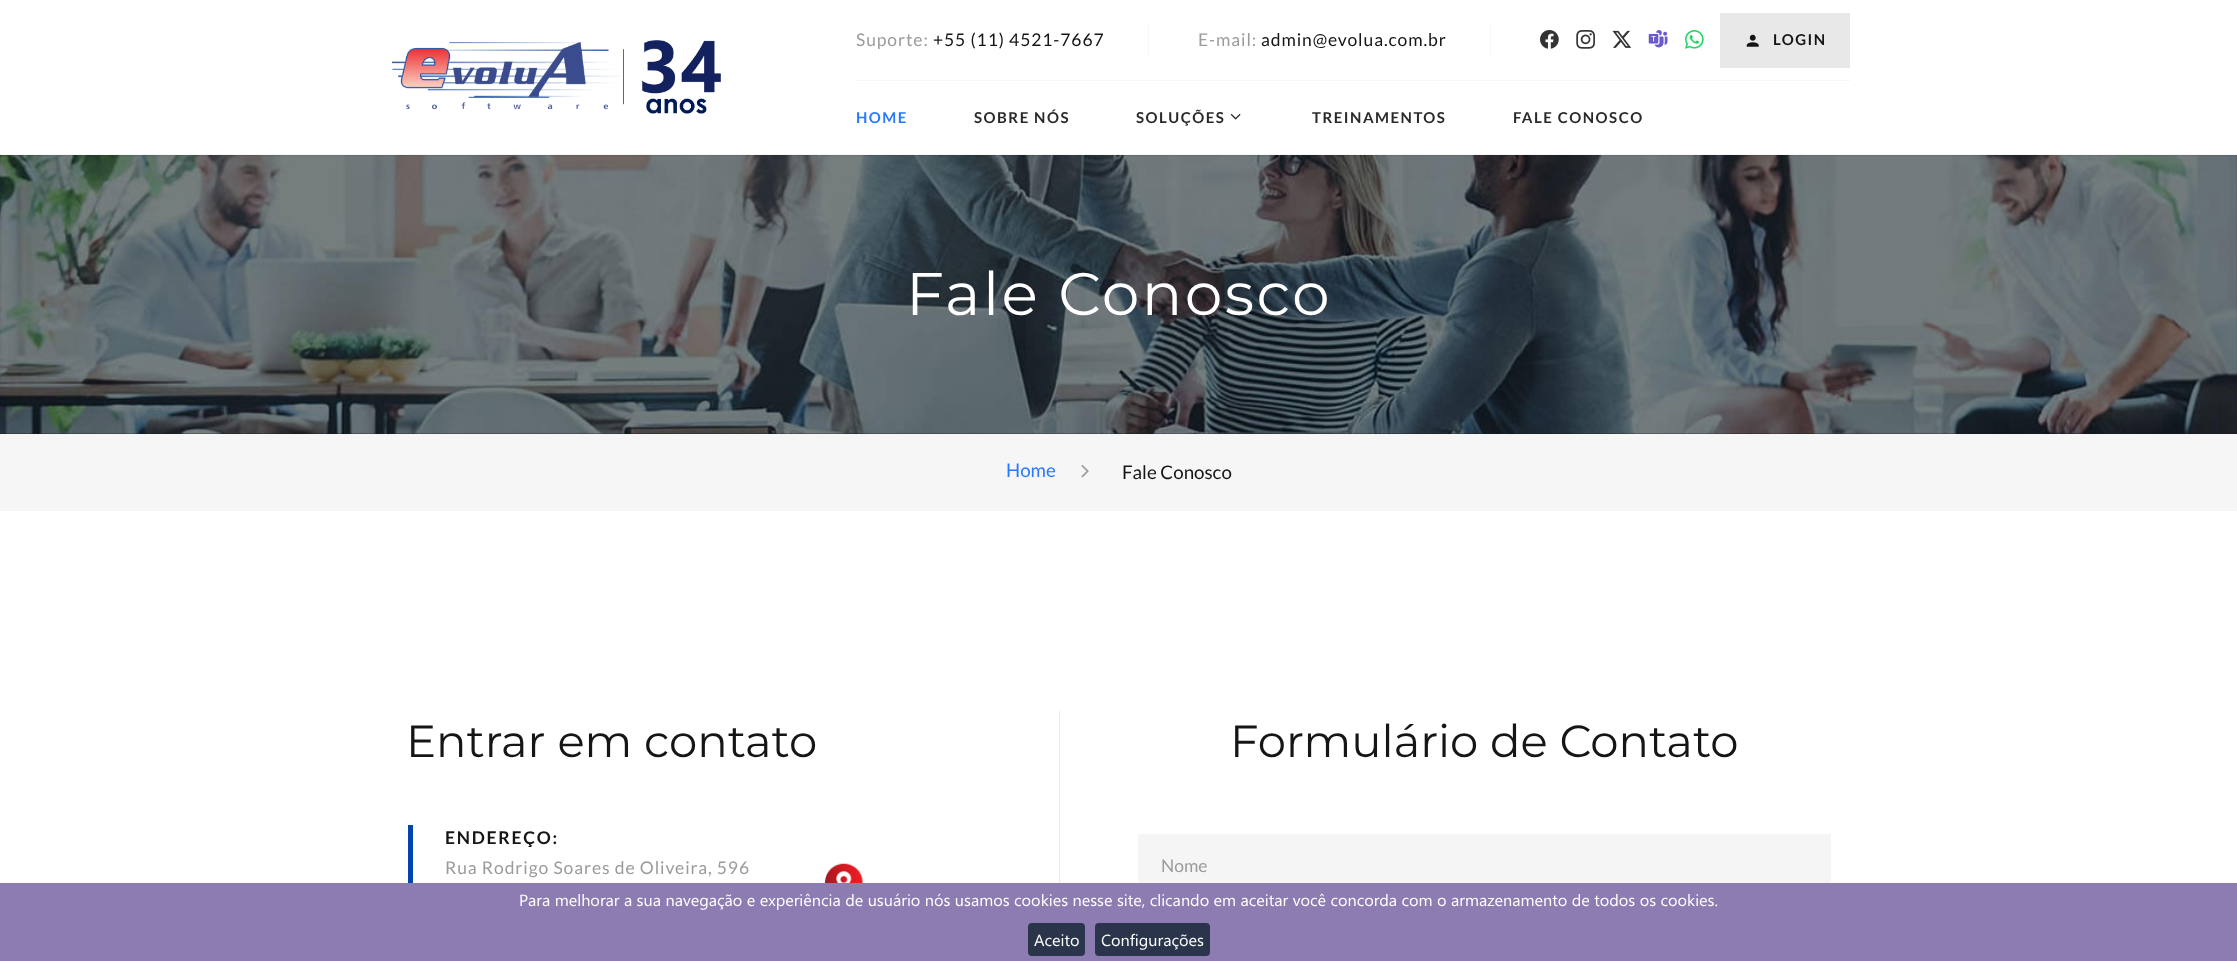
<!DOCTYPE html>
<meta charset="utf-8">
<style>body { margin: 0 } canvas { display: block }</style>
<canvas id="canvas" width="2237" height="961"></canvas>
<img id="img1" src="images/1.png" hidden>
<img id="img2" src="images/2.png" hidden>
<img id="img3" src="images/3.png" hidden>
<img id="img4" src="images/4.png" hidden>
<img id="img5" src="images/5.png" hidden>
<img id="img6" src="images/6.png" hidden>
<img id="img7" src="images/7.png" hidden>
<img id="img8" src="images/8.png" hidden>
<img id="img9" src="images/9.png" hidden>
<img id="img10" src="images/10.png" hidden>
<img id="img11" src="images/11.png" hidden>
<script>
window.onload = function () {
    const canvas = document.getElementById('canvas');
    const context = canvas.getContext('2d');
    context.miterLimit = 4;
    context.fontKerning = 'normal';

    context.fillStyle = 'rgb(255, 255, 255)';
    context.fillRect(0, 0, 2237, 961);
    context.fillStyle = 'rgb(246, 246, 246)';
    context.fillRect(0, 154, 2237, 1);
    context.drawImage(document.getElementById('img1'), 392, 40, 329, 74);
    context.fillRect(1148, 25, 1, 30);
    context.fillRect(1490, 25, 1, 30);
    context.drawImage(document.getElementById('img2'), 1540, 30, 19, 19);
    context.drawImage(document.getElementById('img3'), 1576, 30, 19, 19);
    context.drawImage(document.getElementById('img4'), 1612, 30, 20, 18);
    context.drawImage(document.getElementById('img5'), 1648, 30, 20, 18);
    context.drawImage(document.getElementById('img6'), 1685, 30, 19, 19);
    context.fillStyle = 'rgb(232, 232, 232)';
    context.fillRect(1720, 13, 130, 55);
    context.drawImage(document.getElementById('img7'), 1746, 34, 13, 13);
    context.fillStyle = 'rgb(246, 246, 246)';
    context.fillRect(856, 80, 994, 1);
    context.drawImage(document.getElementById('img8'), 1230, 113, 11, 7);
    context.fillStyle = 'rgb(21, 21, 21)';
    context.fillRect(0, 155, 2237, 279);
    context.drawImage(document.getElementById('img9'), 0, 155, 2237, 279);
    context.fillStyle = 'rgb(246, 246, 246)';
    context.fillRect(0, 434, 2237, 77);
    context.drawImage(document.getElementById('img10'), 1081, 465, 8, 13);
    context.fillStyle = 'rgb(232, 232, 232)';
    context.fillRect(1059, 711, 1, 172);
    context.fillStyle = 'rgb(0, 67, 177)';
    context.fillRect(408, 825, 5, 58);
    context.drawImage(document.getElementById('img11'), 825, 863, 38, 20);
    context.fillStyle = 'rgb(245, 245, 245)';
    context.fillRect(1138, 834, 693, 49);
    context.fillStyle = 'rgb(140, 124, 177)';
    context.fillRect(0, 883, 2237, 78);
    context.fillStyle = 'rgb(42, 53, 75)';
    context.beginPath();
    context.roundRect(1028, 923, 57, 33, 4);
    context.fill();
    context.beginPath();
    context.roundRect(1095, 923, 115, 33, 4);
    context.fill();
    context.letterSpacing = '0.9px';
    context.font = '17.5px Lato';
    context.fillStyle = 'rgb(155, 155, 155)';
    context.fillText('Suporte:', 856, 46);
    context.fillStyle = 'rgb(21, 21, 21)';
    context.fillText('+55 (11) 4521-7667', 933, 46);
    context.fillStyle = 'rgb(155, 155, 155)';
    context.fillText('E-mail:', 1198, 46);
    context.fillStyle = 'rgb(21, 21, 21)';
    context.fillText('admin@evolua.com.br', 1261, 46);
    context.letterSpacing = '1.5px';
    context.font = 'bold 15px Lato';
    context.fillText('LOGIN', 1773, 45);
    context.fillStyle = 'rgb(40, 121, 254)';
    context.fillText('HOME', 856, 123);
    context.fillStyle = 'rgb(41, 41, 41)';
    context.fillText('SOBRE NÓS', 974, 123);
    context.fillText('SOLUÇÕES', 1136, 123);
    context.fillText('TREINAMENTOS', 1312, 123);
    context.fillText('FALE CONOSCO', 1513, 123);
    context.letterSpacing = '2.4px';
    context.font = '60px Montserrat';
    context.fillStyle = 'rgb(255, 255, 255)';
    context.fillText('Fale Conosco', 906, 315);
    context.letterSpacing = '0px';
    context.font = '18.75px Lato';
    context.fillStyle = 'rgb(40, 121, 254)';
    context.fillText('Home', 1006, 477);
    context.fillStyle = 'rgb(21, 21, 21)';
    context.fillText('Fale Conosco', 1122, 479);
    context.font = '45px Montserrat';
    context.fillText('Entrar em contato', 406, 757);
    context.letterSpacing = '1.75px';
    context.font = 'bold 17.5px Lato';
    context.fillText('ENDEREÇO:', 445, 844);
    context.letterSpacing = '0.9px';
    context.font = '17.5px Lato';
    context.fillStyle = 'rgb(155, 155, 155)';
    context.fillText('Rua Rodrigo Soares de Oliveira, 596', 445, 874);
    context.letterSpacing = '0px';
    context.font = '45px Montserrat';
    context.fillStyle = 'rgb(21, 21, 21)';
    context.fillText('Formulário de Contato', 1230, 757);
    context.font = '17.5px Lato';
    context.fillStyle = 'rgb(155, 155, 155)';
    context.fillText('Nome', 1161, 872);
    context.font = '16.25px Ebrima';
    context.fillStyle = 'rgb(255, 255, 255)';
    context.fillText('Para melhorar a sua navegação e experiência de usuário nós usamos cookies nesse site, clicando em aceitar você concorda com o armazenamento de todos os cookies.', 519, 906);
    context.fillText('Aceito', 1034, 946);
    context.fillText('Configurações', 1101, 946);
};
</script>
